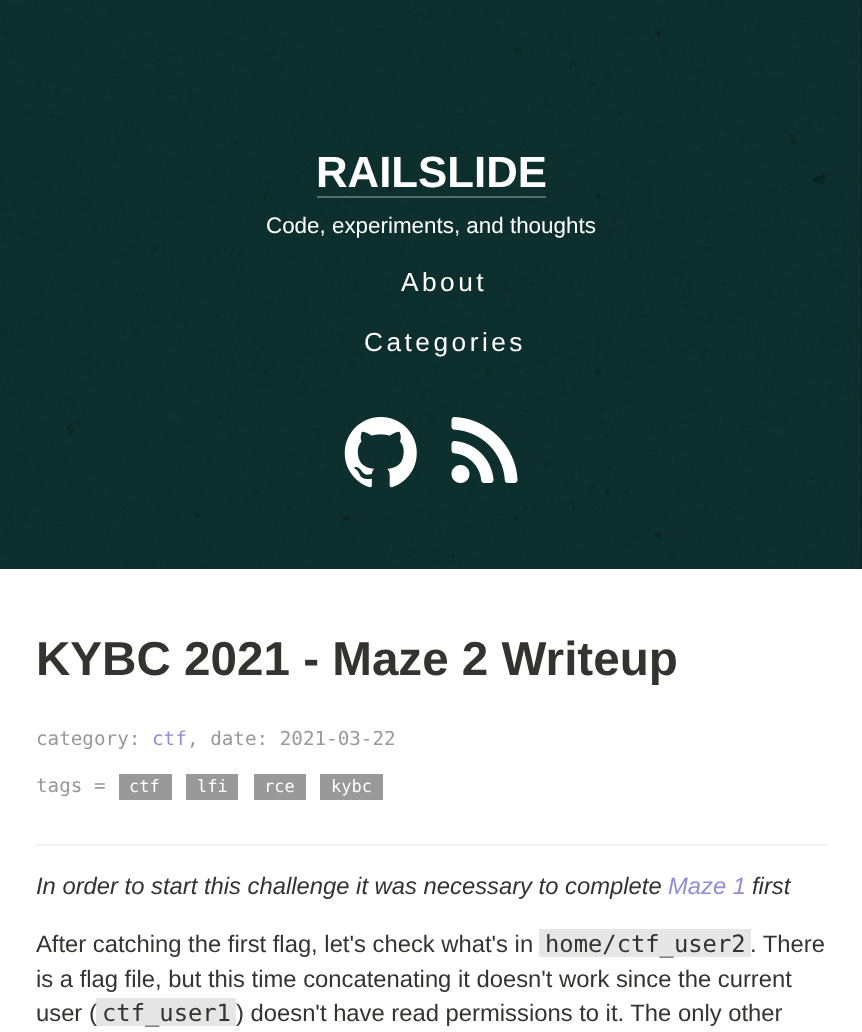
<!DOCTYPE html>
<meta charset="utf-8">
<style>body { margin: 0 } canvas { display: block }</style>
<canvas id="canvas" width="862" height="1032"></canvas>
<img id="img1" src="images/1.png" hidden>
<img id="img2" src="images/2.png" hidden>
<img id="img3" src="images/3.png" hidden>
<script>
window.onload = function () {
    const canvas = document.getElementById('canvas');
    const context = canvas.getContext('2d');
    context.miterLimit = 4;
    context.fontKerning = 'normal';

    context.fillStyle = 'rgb(255, 255, 255)';
    context.fillRect(0, 0, 862, 1032);
    context.fillStyle = 'rgb(13, 48, 46)';
    context.fillRect(0, 0, 862, 569);
    context.drawImage(document.getElementById('img1'), 0, 1, 862, 567);
    context.fillStyle = 'rgba(0, 0, 0, 0.3)';
    context.fillRect(861, 0, 1, 569);
    context.fillStyle = 'rgba(255, 255, 255, 0.3)';
    context.fillRect(317, 196, 229, 2);
    context.drawImage(document.getElementById('img2'), 344, 417, 73, 71);
    context.drawImage(document.getElementById('img3'), 451, 417, 67, 66);
    context.fillStyle = 'rgb(242, 242, 240)';
    context.fillRect(35, 844, 793, 2);
    context.fillStyle = 'rgb(153, 153, 153)';
    context.fillRect(119, 774, 53, 26);
    context.fillRect(186, 774, 52, 26);
    context.fillRect(254, 774, 52, 26);
    context.fillRect(320, 774, 63, 26);
    context.fillStyle = 'rgb(230, 230, 230)';
    context.fillRect(539, 929, 212, 28);
    context.fillStyle = 'rgba(0, 0, 0, 0.1)';
    context.fillRect(96, 998, 140, 28);
    context.font = 'bold 43.75px Liberation Sans';
    context.fillStyle = 'rgb(255, 255, 255)';
    context.fillText('RAILSLIDE', 316, 187);
    context.font = '22.4px Liberation Sans';
    context.fillText('Code, experiments, and thoughts', 266, 233);
    context.letterSpacing = '3.5px';
    context.font = '26.25px Liberation Sans';
    context.fillText('About', 401, 291);
    context.fillText('Categories', 364, 351);
    context.letterSpacing = '0px';
    context.font = 'bold 47.6px Liberation Sans';
    context.fillStyle = 'rgb(51, 51, 50)';
    context.fillText('KYBC 2021 - Maze 2 Writeup', 36, 675);
    context.font = '19.25px DejaVu Sans Mono';
    context.fillStyle = 'rgb(153, 153, 153)';
    context.fillText('category:', 36, 745);
    context.fillStyle = 'rgb(142, 142, 214)';
    context.fillText('ctf', 152, 745);
    context.fillStyle = 'rgb(153, 153, 153)';
    context.fillText(', date: 2021-03-22', 187, 745);
    context.fillText('tags =', 36, 792);
    context.font = '17px DejaVu Sans Mono';
    context.fillStyle = 'rgb(255, 255, 255)';
    context.fillText('ctf', 129, 792);
    context.fillText('lfi', 197, 792);
    context.fillText('rce', 264, 792);
    context.fillText('kybc', 331, 792);
    context.font = 'italic 23.8px Liberation Sans';
    context.fillStyle = 'rgb(51, 51, 50)';
    context.fillText('In order to start this challenge it was necessary to complete', 36, 894);
    context.fillStyle = 'rgb(142, 142, 214)';
    context.fillText('Maze 1', 668, 894);
    context.fillStyle = 'rgb(51, 51, 50)';
    context.fillText('first', 752, 894);
    context.font = '23.8px Liberation Sans';
    context.fillText('After catching the first flag, let\'s check what\'s in', 36, 952);
    context.font = '23.8px DejaVu Sans Mono';
    context.fillText('home/ctf_user2', 545, 952);
    context.font = '23.8px Liberation Sans';
    context.fillText('. There', 750, 952);
    context.fillText('is a flag file, but this time concatenating it doesn\'t work since the current', 36, 987);
    context.fillText('user (', 36, 1021);
    context.font = '23.8px DejaVu Sans Mono';
    context.fillText('ctf_user1', 102, 1021);
    context.font = '23.8px Liberation Sans';
    context.fillText(') doesn\'t have read permissions to it. The only other', 236, 1021);
};
</script>
